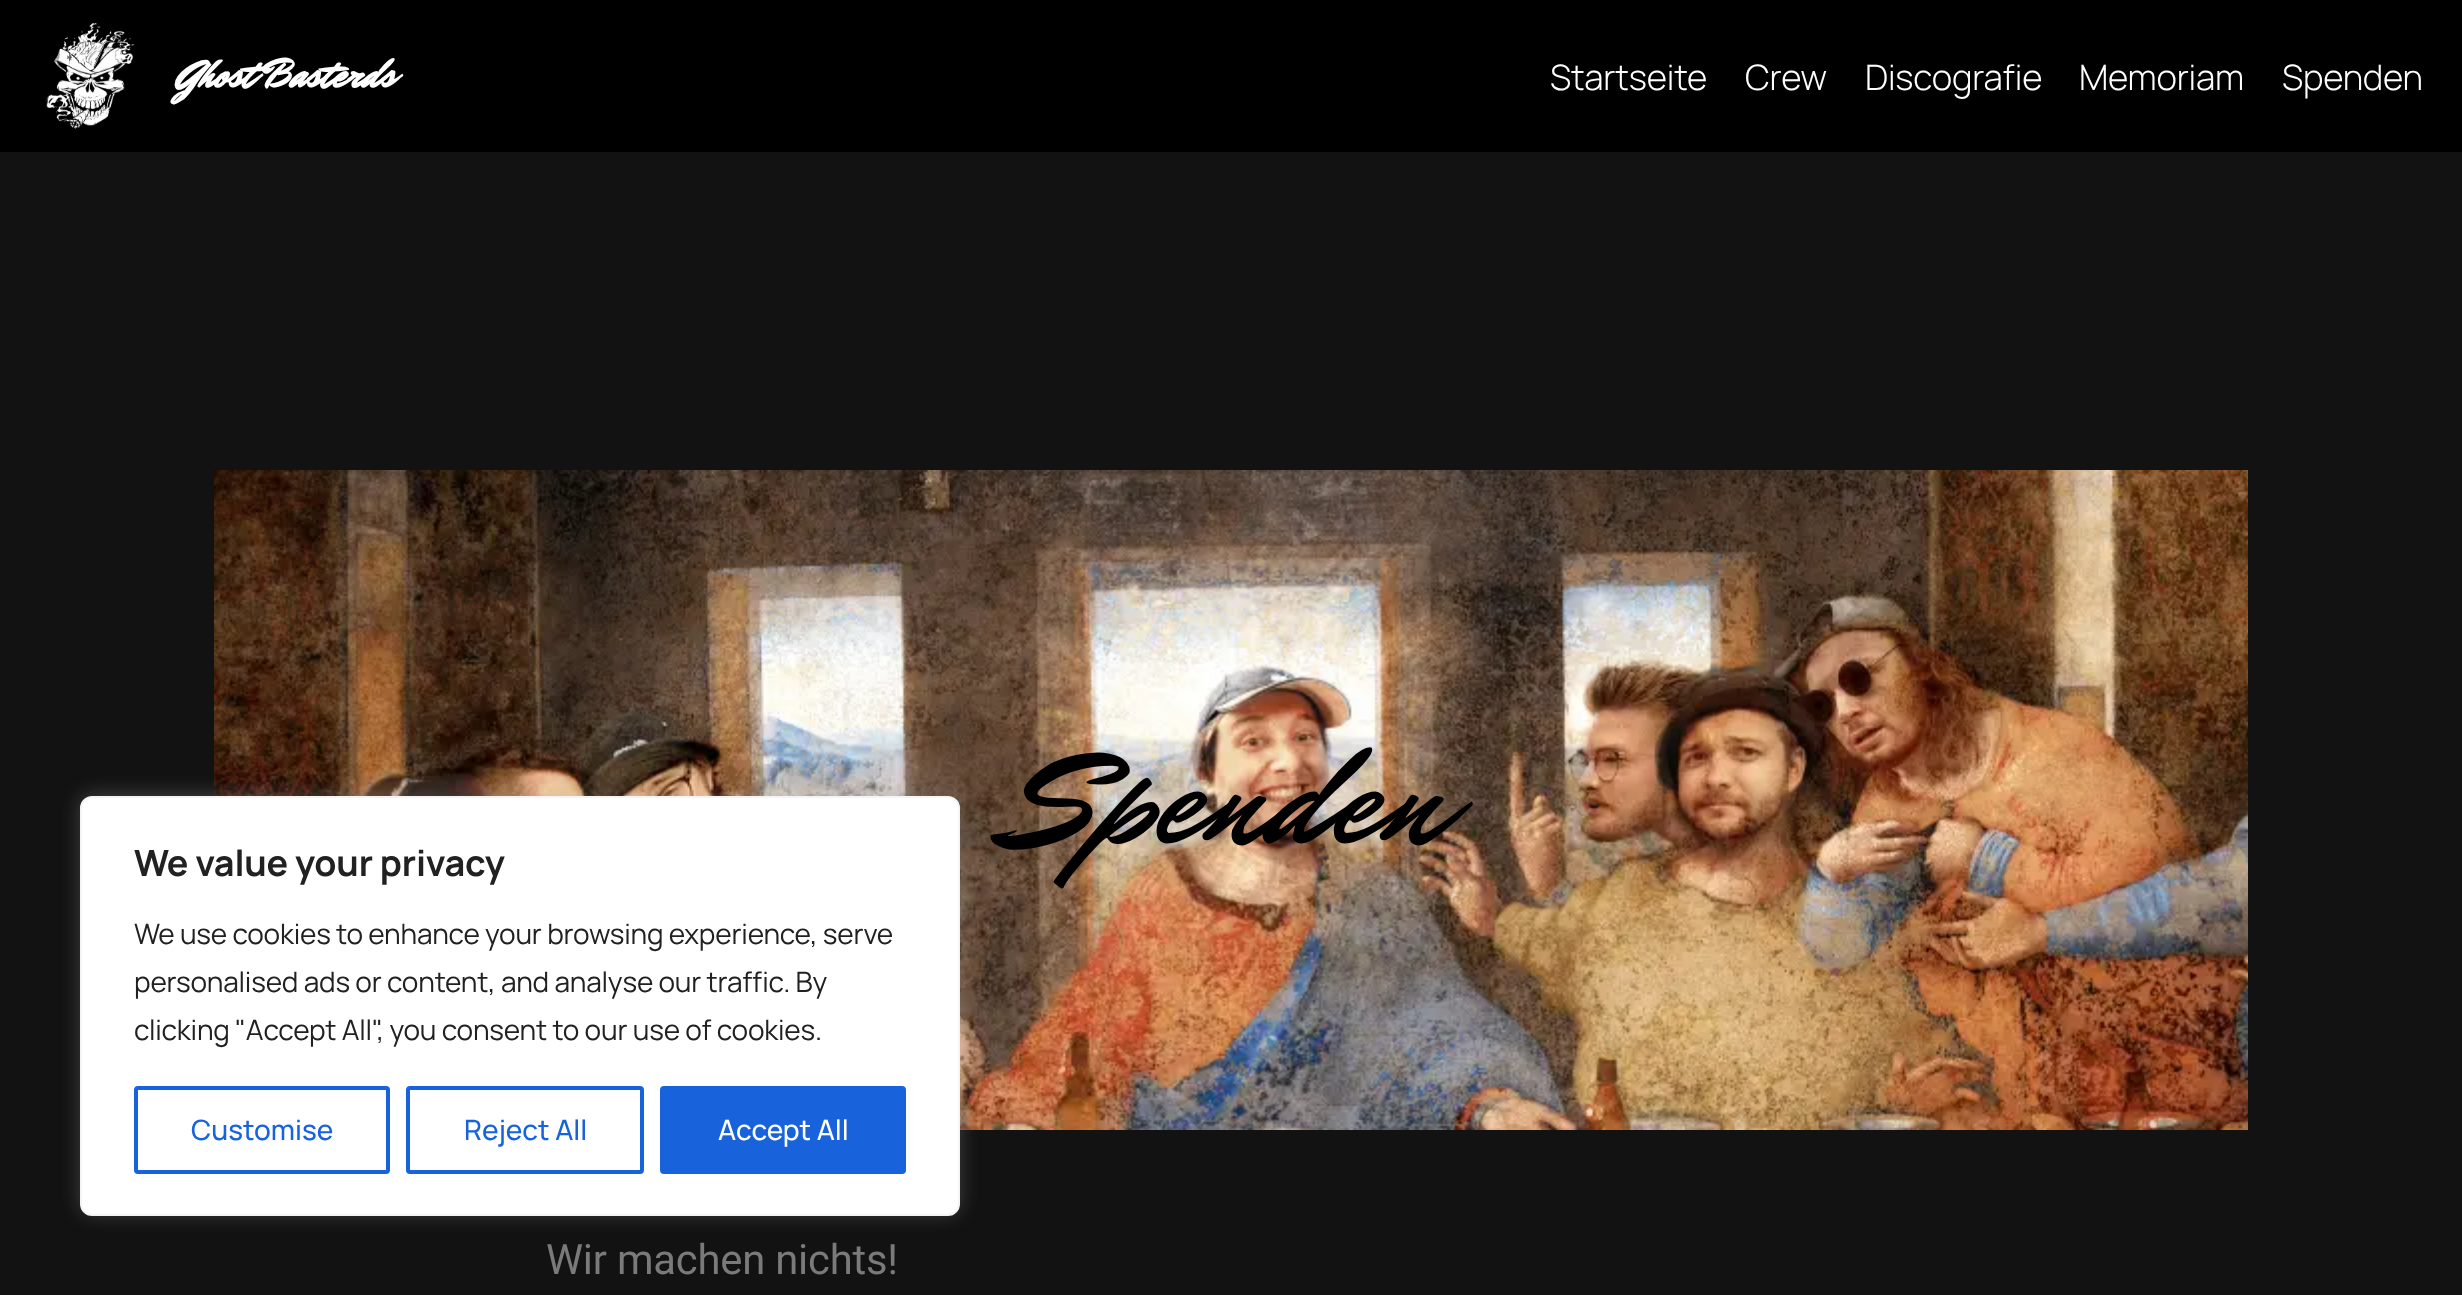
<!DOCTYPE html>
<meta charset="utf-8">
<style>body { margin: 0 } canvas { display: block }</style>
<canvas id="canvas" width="2462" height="1295"></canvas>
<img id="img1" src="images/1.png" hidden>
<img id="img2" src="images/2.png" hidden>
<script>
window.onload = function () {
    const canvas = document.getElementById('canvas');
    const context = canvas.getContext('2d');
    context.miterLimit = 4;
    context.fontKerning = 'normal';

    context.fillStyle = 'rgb(18, 18, 18)';
    context.fillRect(0, 0, 2462, 1295);
    context.fillStyle = 'rgb(0, 0, 0)';
    context.fillRect(0, 0, 2462, 152);
    context.drawImage(document.getElementById('img1'), 45, 23, 90, 106);
    context.drawImage(document.getElementById('img2'), 214, 470, 2034, 660);
    context.fillStyle = 'rgba(172, 171, 171, 0.3)';
    context.filter = 'blur(10px)';
    context.beginPath();
    context.roundRect(80, 794, 880, 420, 12);
    context.fill();
    context.filter = 'none';
    context.fillStyle = 'rgb(255, 255, 255)';
    context.beginPath();
    context.roundRect(81, 797, 878, 418, 11);
    context.fill();
    context.strokeStyle = 'rgb(244, 244, 244)';
    context.lineWidth = 2;
    context.stroke();
    context.beginPath();
    context.roundRect(136, 1088, 252, 84, 2);
    context.strokeStyle = 'rgb(24, 99, 220)';
    context.lineWidth = 4;
    context.stroke();
    context.beginPath();
    context.roundRect(408, 1088, 234, 84, 2);
    context.stroke();
    context.fillStyle = 'rgb(24, 99, 220)';
    context.beginPath();
    context.roundRect(662, 1088, 242, 84, 2);
    context.fill();
    context.stroke();
    context.letterSpacing = '-1px';
    context.font = 'bold 41.75px Mr Dafoe';
    context.fillStyle = 'rgb(255, 255, 255)';
    context.fillText('Ghost Basterds', 178, 87);
    context.letterSpacing = '-0.2px';
    context.font = '300 35px Manrope';
    context.fillText('Startseite', 1550, 90);
    context.fillText('Crew', 1745, 90);
    context.fillText('Discografie', 1865, 90);
    context.fillText('Memoriam', 2079, 90);
    context.fillText('Spenden', 2282, 90);
    context.font = '140px Mr Dafoe';
    context.fillStyle = 'rgb(0, 0, 0)';
    context.fillText('Spenden', 1017, 841);
    context.font = '41.75px Roboto';
    context.fillStyle = 'rgb(122, 122, 122)';
    context.fillText('Wir machen nichts!', 546, 1274);
    context.font = 'bold 36px Manrope';
    context.fillStyle = 'rgb(33, 33, 33)';
    context.fillText('We value your privacy', 134, 876);
    context.font = '28px Manrope';
    context.fillText('We use cookies to enhance your browsing experience, serve', 134, 944);
    context.fillText('personalised ads or content, and analyse our traffic. By', 134, 992);
    context.fillText('clicking "Accept All", you consent to our use of cookies.', 134, 1040);
    context.letterSpacing = '0px';
    context.font = '500 28px Manrope';
    context.fillStyle = 'rgb(24, 99, 220)';
    context.fillText('Customise', 191, 1140);
    context.fillText('Reject All', 464, 1140);
    context.fillStyle = 'rgb(255, 255, 255)';
    context.fillText('Accept All', 718, 1140);
};
</script>
